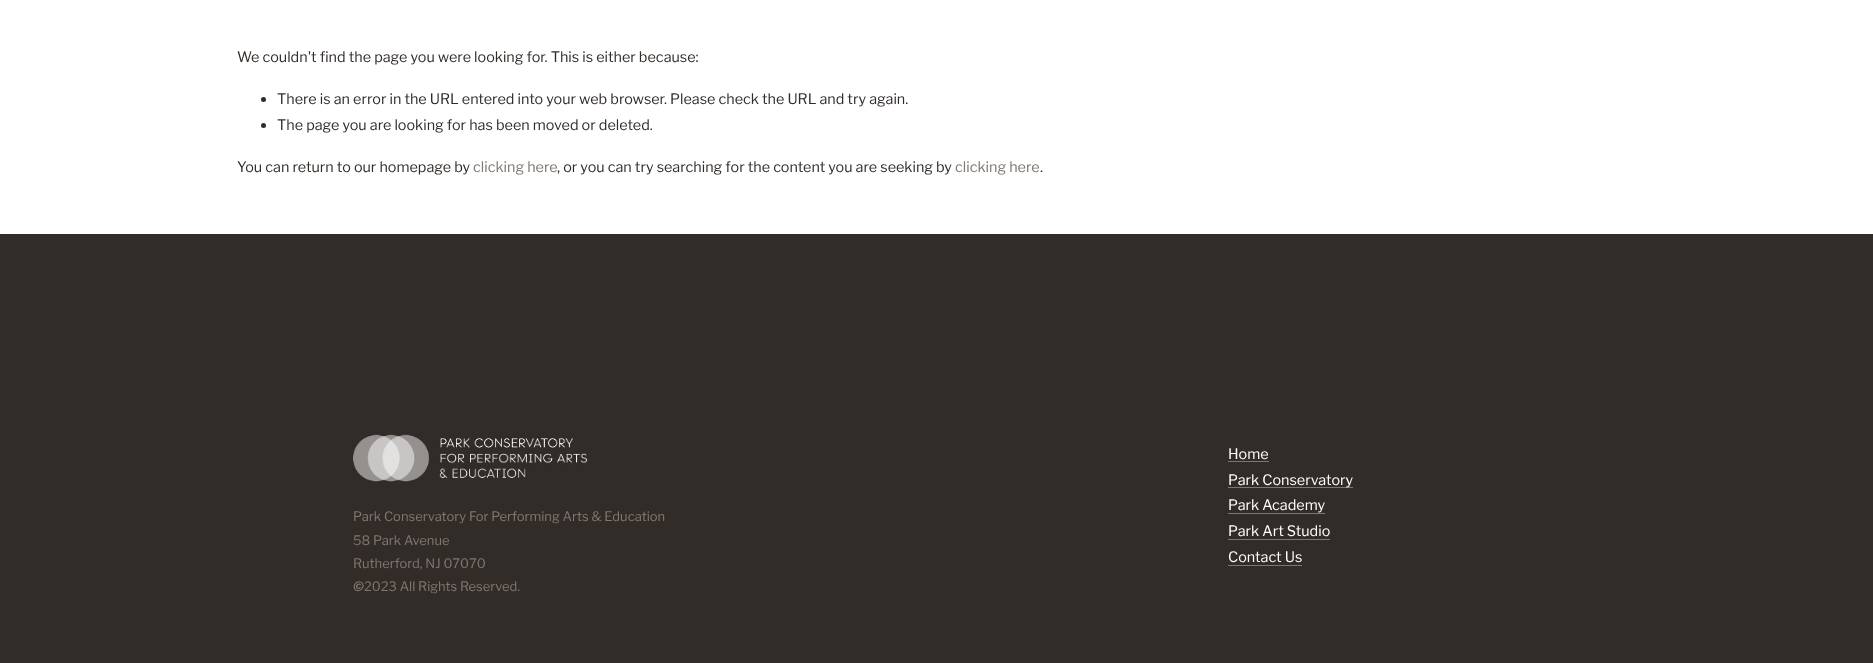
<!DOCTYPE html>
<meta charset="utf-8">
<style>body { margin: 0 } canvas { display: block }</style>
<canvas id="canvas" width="1873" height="663"></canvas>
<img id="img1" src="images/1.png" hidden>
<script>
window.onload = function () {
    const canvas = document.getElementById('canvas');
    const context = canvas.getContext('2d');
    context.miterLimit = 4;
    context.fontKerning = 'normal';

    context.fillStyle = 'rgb(255, 255, 255)';
    context.fillRect(0, 0, 1873, 663);
    context.fillStyle = 'rgb(50, 44, 41)';
    context.beginPath();
    context.arc(263.5, 99.5, 2.5, 0, 2 * Math.PI);
    context.fill();
    context.beginPath();
    context.arc(263.5, 125.5, 2.5, 0, 2 * Math.PI);
    context.fill();
    context.fillRect(0, 234, 1873, 429);
    context.drawImage(document.getElementById('img1'), 353, 434, 234, 48);
    context.fillStyle = 'rgb(126, 118, 112)';
    context.fillRect(1228, 461, 41, 1);
    context.fillRect(1228, 487, 125, 1);
    context.fillRect(1228, 513, 97, 1);
    context.fillRect(1228, 539, 102, 1);
    context.fillRect(1228, 565, 74, 1);
    context.font = '14.4px Libre Franklin';
    context.fillStyle = 'rgb(50, 44, 41)';
    context.fillText('We couldn\'t find the page you were looking for. This is either because:', 237, 62);
    context.fillText('There is an error in the URL entered into your web browser. Please check the URL and try again.', 277, 104);
    context.fillText('The page you are looking for has been moved or deleted.', 277, 130);
    context.fillText('You can return to our homepage by', 237, 172);
    context.fillStyle = 'rgb(126, 118, 112)';
    context.fillText('clicking here', 473, 172);
    context.fillStyle = 'rgb(50, 44, 41)';
    context.fillText(', or you can try searching for the content you are seeking by', 557, 172);
    context.fillStyle = 'rgb(126, 118, 112)';
    context.fillText('clicking here', 955, 172);
    context.fillStyle = 'rgb(50, 44, 41)';
    context.fillText('.', 1040, 172);
    context.fillStyle = 'rgb(255, 255, 255)';
    context.fillText('Home', 1228, 459);
    context.fillText('Park Conservatory', 1228, 485);
    context.fillText('Park Academy', 1228, 510);
    context.fillText('Park Art Studio', 1228, 536);
    context.fillText('Contact Us', 1228, 562);
    context.font = '13px Libre Franklin';
    context.fillStyle = 'rgb(126, 118, 112)';
    context.fillText('Park Conservatory For Performing Arts & Education', 353, 521);
    context.fillText('58 Park Avenue', 353, 545);
    context.fillText('Rutherford, NJ 07070', 353, 568);
    context.font = 'italic bold 13px Libre Franklin';
    context.fillText('©', 353, 591);
    context.font = '13px Libre Franklin';
    context.fillText('2023 All Rights Reserved.', 364, 591);
};
</script>
